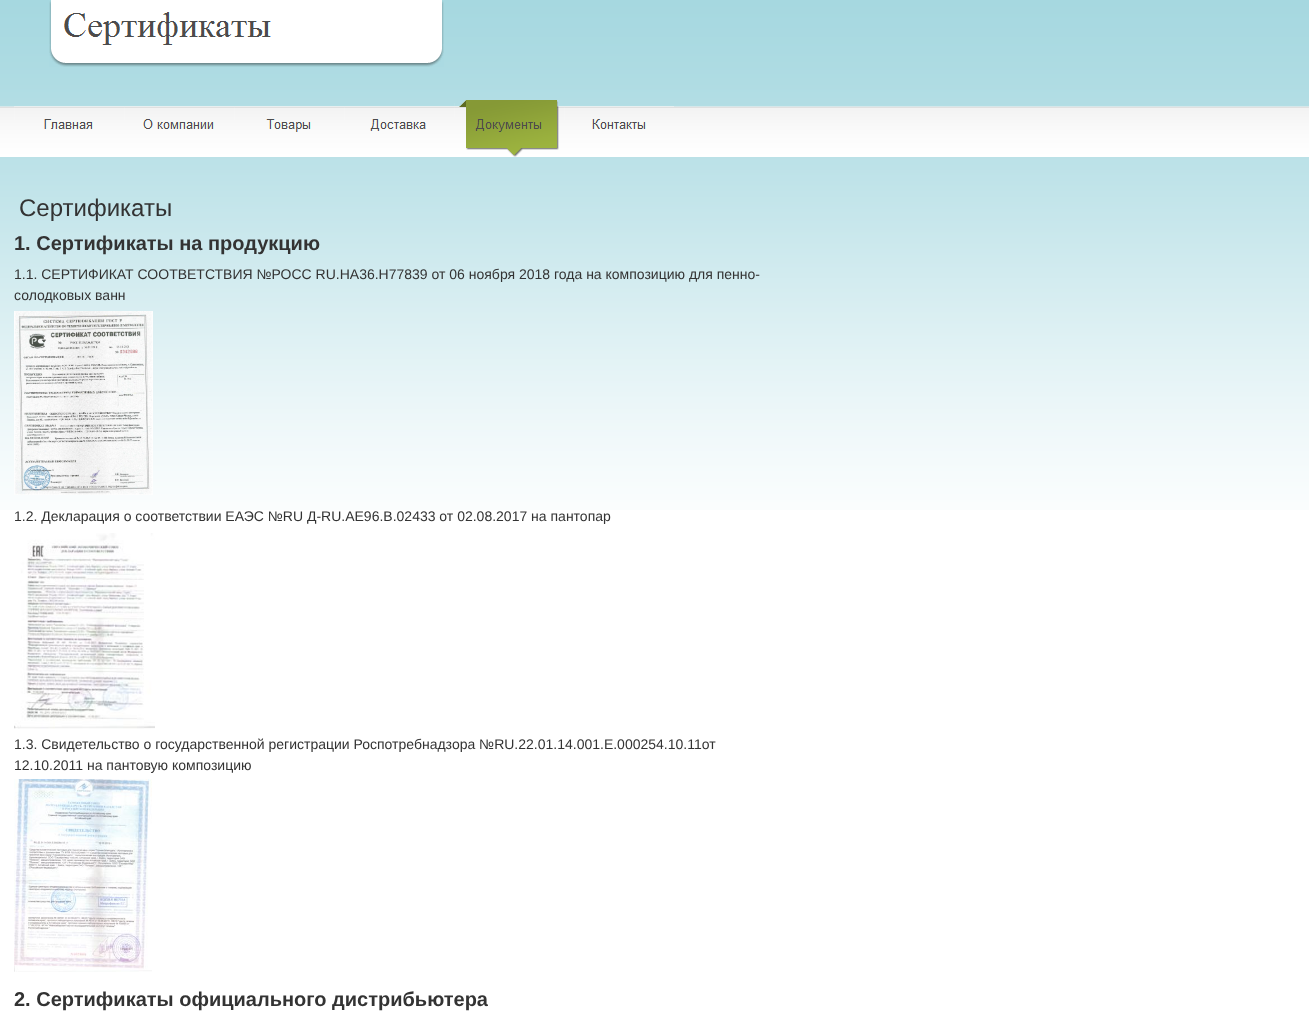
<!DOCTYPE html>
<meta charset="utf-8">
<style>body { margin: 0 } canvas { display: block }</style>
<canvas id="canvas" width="1309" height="1026"></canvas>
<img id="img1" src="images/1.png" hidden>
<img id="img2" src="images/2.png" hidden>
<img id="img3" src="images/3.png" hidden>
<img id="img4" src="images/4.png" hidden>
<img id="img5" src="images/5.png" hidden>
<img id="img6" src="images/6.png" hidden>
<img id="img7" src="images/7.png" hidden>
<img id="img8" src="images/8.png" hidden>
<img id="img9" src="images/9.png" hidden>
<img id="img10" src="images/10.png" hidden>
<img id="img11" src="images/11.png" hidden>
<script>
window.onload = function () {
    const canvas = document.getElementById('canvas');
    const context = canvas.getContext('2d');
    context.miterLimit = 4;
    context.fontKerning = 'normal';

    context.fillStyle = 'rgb(255, 255, 255)';
    context.fillRect(0, 0, 1309, 1026);
    context.drawImage(document.getElementById('img1'), 0, 0, 1309, 510);
    context.drawImage(document.getElementById('img2'), 49, 0, 395, 67);
    context.drawImage(document.getElementById('img3'), 14, 106, 110, 23);
    context.drawImage(document.getElementById('img4'), 124, 106, 110, 23);
    context.drawImage(document.getElementById('img5'), 234, 106, 110, 26);
    context.drawImage(document.getElementById('img6'), 344, 106, 110, 25);
    context.drawImage(document.getElementById('img7'), 454, 100, 110, 57);
    context.drawImage(document.getElementById('img8'), 564, 106, 110, 23);
    context.drawImage(document.getElementById('img9'), 14, 311, 139, 184);
    context.drawImage(document.getElementById('img10'), 14, 533, 141, 196);
    context.drawImage(document.getElementById('img11'), 14, 779, 138, 193);
    context.font = '24px Liberation Sans';
    context.fillStyle = 'rgb(51, 51, 51)';
    context.fillText('Сертификаты', 19, 216);
    context.font = 'bold 20px Liberation Sans';
    context.fillText('1. Сертификаты на продукцию', 14, 250);
    context.font = '14px Liberation Sans';
    context.fillText('1.1. СЕРТИФИКАТ СООТВЕТСТВИЯ №РОСС RU.НА36.Н77839 от 06 ноября 2018 года на композицию для пенно-', 14, 279);
    context.fillText('солодковых ванн', 14, 300);
    context.fillText('1.2. Декларация о соответствии ЕАЭС №RU Д-RU.АЕ96.В.02433 от 02.08.2017 на пантопар', 14, 521);
    context.fillText('1.3. Свидетельство о государственной регистрации Роспотребнадзора №RU.22.01.14.001.E.000254.10.11от', 14, 749);
    context.fillText('12.10.2011 на пантовую композицию', 14, 770);
    context.font = 'bold 20px Liberation Sans';
    context.fillText('2. Сертификаты официального дистрибьютера', 14, 1006);
};
</script>
